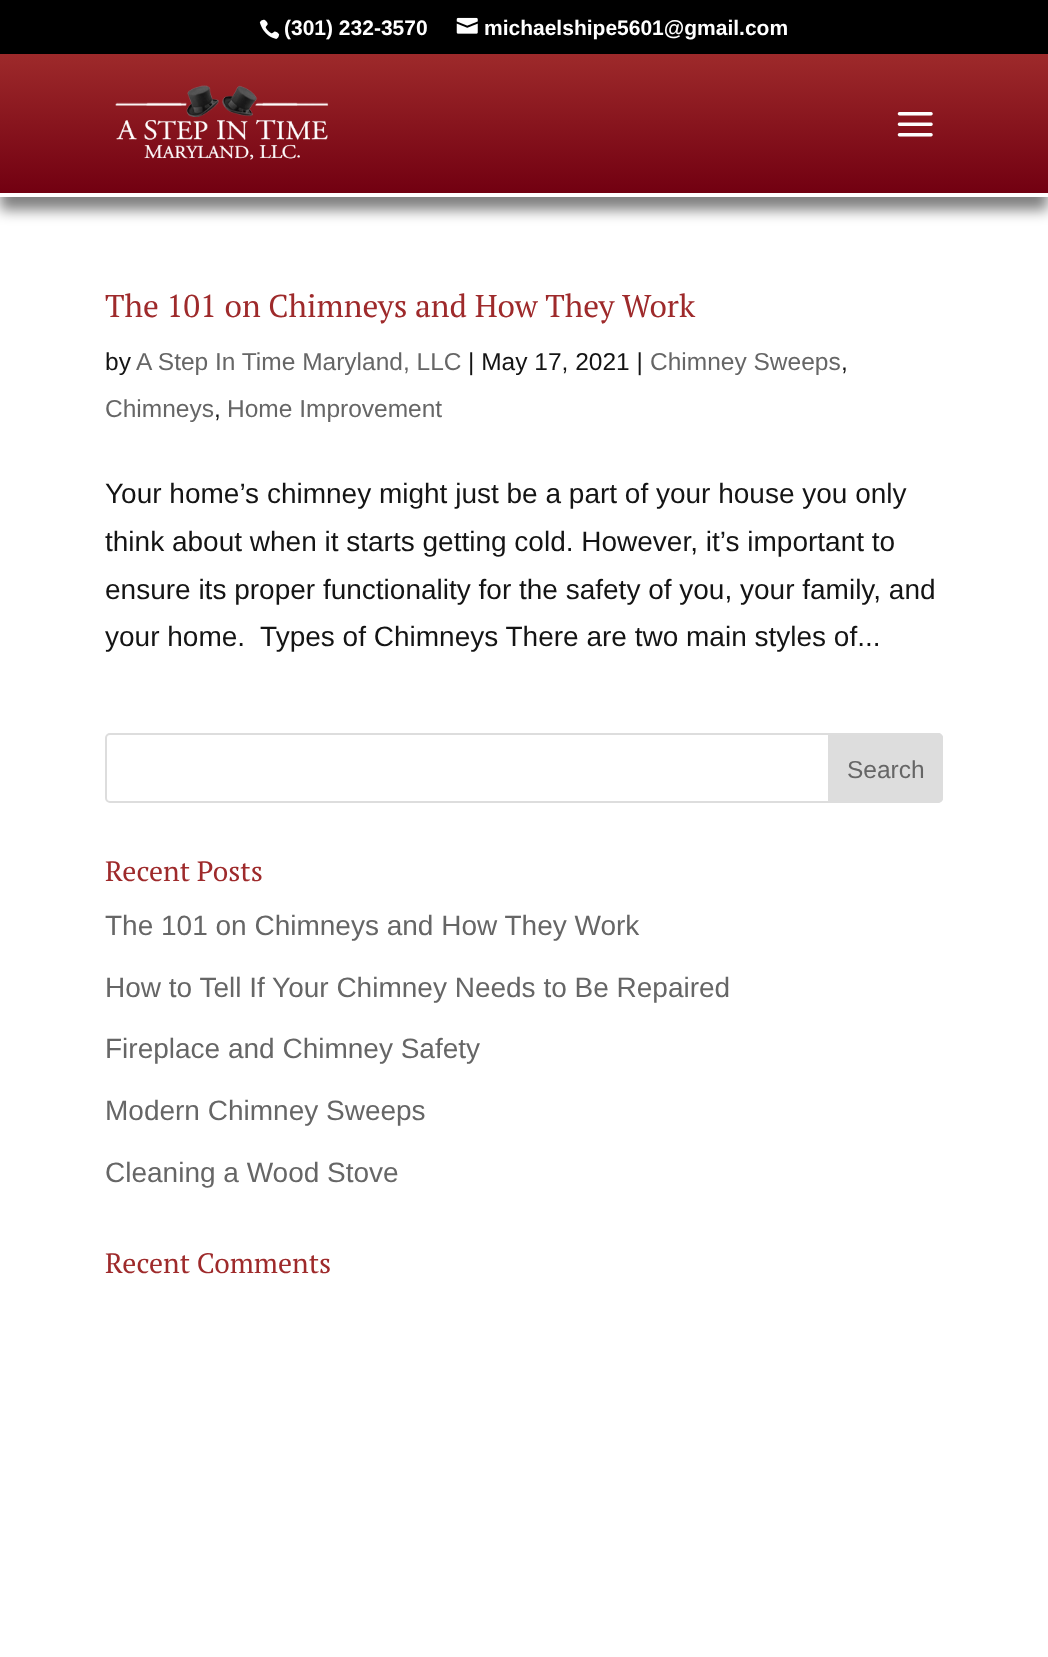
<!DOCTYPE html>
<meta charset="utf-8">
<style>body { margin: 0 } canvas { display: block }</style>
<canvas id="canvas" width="1048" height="1657"></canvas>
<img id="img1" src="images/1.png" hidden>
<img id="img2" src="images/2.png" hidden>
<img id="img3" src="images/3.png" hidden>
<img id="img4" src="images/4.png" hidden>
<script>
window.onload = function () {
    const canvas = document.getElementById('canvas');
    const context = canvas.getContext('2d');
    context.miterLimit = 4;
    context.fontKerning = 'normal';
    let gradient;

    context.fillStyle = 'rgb(255, 255, 255)';
    context.fillRect(0, 0, 1048, 1657);
    context.fillStyle = 'rgba(0, 0, 0, 0.5)';
    context.filter = 'blur(7px)';
    context.beginPath();
    context.rect(0, 67, 1048, 143);
    context.fill();
    context.filter = 'none';
    context.fillStyle = 'rgb(0, 0, 0)';
    context.fillRect(0, 0, 1048, 54);
    context.drawImage(document.getElementById('img1'), 259, 19, 21, 20);
    context.drawImage(document.getElementById('img2'), 456, 17, 22, 17);
    gradient = context.createLinearGradient(524, 193, 524, 53);
    gradient.addColorStop(0, 'rgb(114, 0, 17)');
    gradient.addColorStop(1, 'rgb(158, 42, 43)');
    context.fillStyle = gradient;
    context.fillRect(0, 54, 1048, 139);
    context.fillStyle = 'rgb(255, 255, 255)';
    context.fillRect(0, 193, 1048, 4);
    context.drawImage(document.getElementById('img3'), 115, 85, 214, 75);
    context.drawImage(document.getElementById('img4'), 897, 112, 36, 25);
    context.beginPath();
    context.roundRect(106, 734, 836, 68, 4);
    context.strokeStyle = 'rgb(221, 221, 221)';
    context.lineWidth = 2;
    context.stroke();
    context.fillStyle = 'rgb(221, 221, 221)';
    context.beginPath();
    context.roundRect(829, 734, 113, 68, [0, 4, 4, 0]);
    context.fill();
    context.stroke();
    context.font = 'bold 21px Liberation Sans';
    context.fillStyle = 'rgb(255, 255, 255)';
    context.fillText('(301) 232-3570', 284, 35);
    context.fillText('michaelshipe5601@gmail.com', 484, 35);
    context.font = '31.5px PT Serif';
    context.fillStyle = 'rgb(158, 42, 43)';
    context.fillText('The 101 on Chimneys and How They Work', 105, 317);
    context.font = '24.5px Liberation Sans';
    context.fillStyle = 'rgb(20, 20, 20)';
    context.fillText('by', 105, 370);
    context.fillStyle = 'rgb(102, 102, 102)';
    context.fillText('A Step In Time Maryland, LLC', 136, 370);
    context.fillStyle = 'rgb(20, 20, 20)';
    context.fillText('| May 17, 2021 |', 468, 370);
    context.fillStyle = 'rgb(102, 102, 102)';
    context.fillText('Chimney Sweeps', 650, 370);
    context.fillStyle = 'rgb(20, 20, 20)';
    context.fillText(',', 841, 370);
    context.fillStyle = 'rgb(102, 102, 102)';
    context.fillText('Chimneys', 105, 417);
    context.fillStyle = 'rgb(20, 20, 20)';
    context.fillText(',', 214, 417);
    context.fillStyle = 'rgb(102, 102, 102)';
    context.fillText('Home Improvement', 227, 417);
    context.font = '28px Liberation Sans';
    context.fillStyle = 'rgb(20, 20, 20)';
    context.fillText('Your home’s chimney might just be a part of your house you only', 105, 503);
    context.fillText('think about when it starts getting cold. However, it’s important to', 105, 551);
    context.fillText('ensure its proper functionality for the safety of you, your family, and', 105, 599);
    context.fillText('your home.  Types of Chimneys There are two main styles of...', 105, 646);
    context.font = '24.5px Liberation Sans';
    context.fillStyle = 'rgb(102, 102, 102)';
    context.fillText('Search', 847, 778);
    context.font = '28px PT Serif';
    context.fillStyle = 'rgb(158, 42, 43)';
    context.fillText('Recent Posts', 105, 881);
    context.font = '28px Liberation Sans';
    context.fillStyle = 'rgb(102, 102, 102)';
    context.fillText('The 101 on Chimneys and How They Work', 105, 935);
    context.fillText('How to Tell If Your Chimney Needs to Be Repaired', 105, 997);
    context.fillText('Fireplace and Chimney Safety', 105, 1058);
    context.fillText('Modern Chimney Sweeps', 105, 1120);
    context.fillText('Cleaning a Wood Stove', 105, 1182);
    context.font = '28px PT Serif';
    context.fillStyle = 'rgb(158, 42, 43)';
    context.fillText('Recent Comments', 105, 1273);
};
</script>
